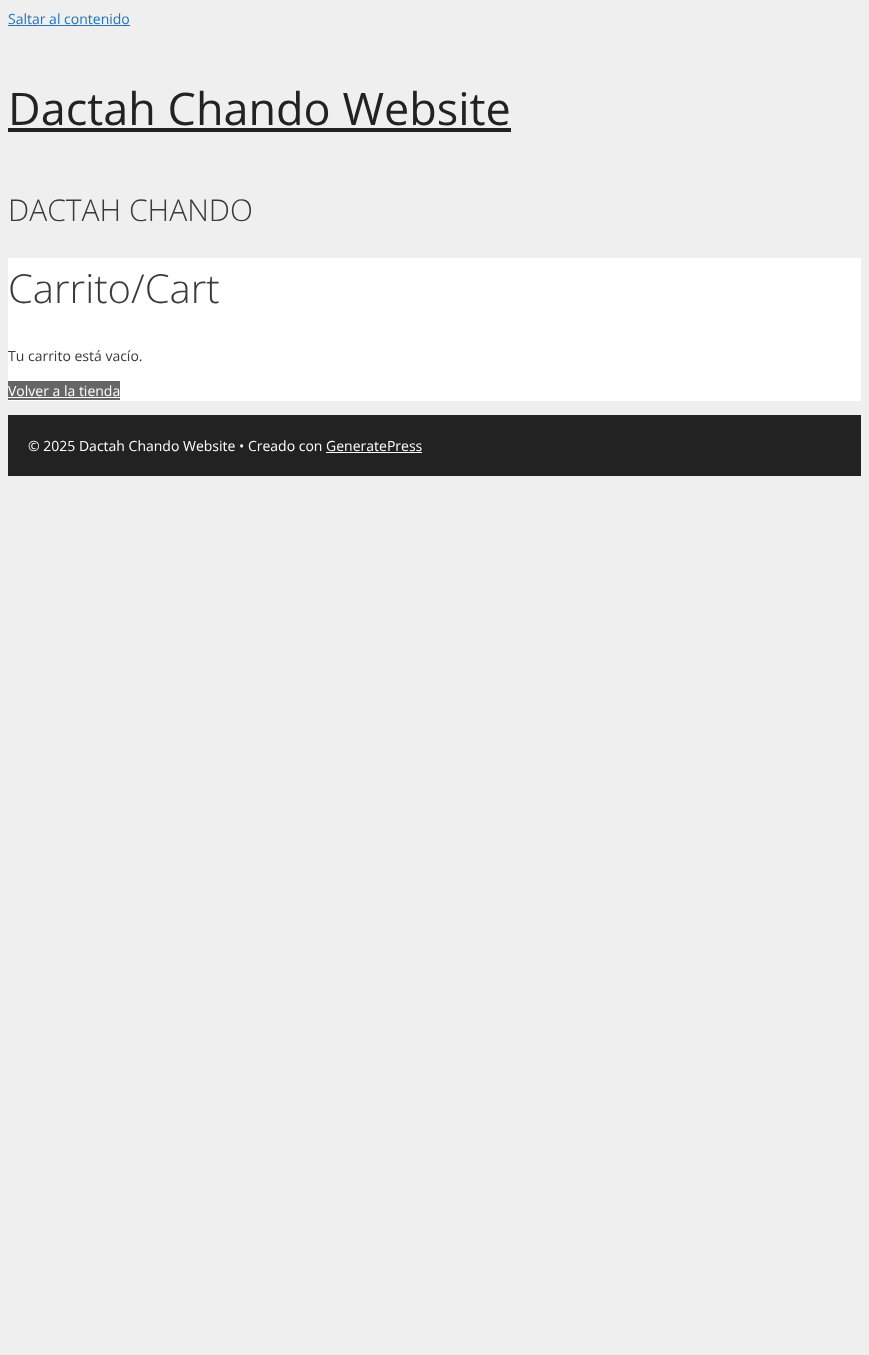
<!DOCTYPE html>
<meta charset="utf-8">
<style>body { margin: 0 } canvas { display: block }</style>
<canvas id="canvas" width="869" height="1355"></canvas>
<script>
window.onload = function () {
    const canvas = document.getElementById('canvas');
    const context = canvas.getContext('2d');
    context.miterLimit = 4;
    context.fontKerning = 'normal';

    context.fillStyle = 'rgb(239, 239, 239)';
    context.fillRect(0, 0, 869, 1355);
    context.fillStyle = 'rgb(30, 115, 190)';
    context.fillRect(8, 25, 122, 1);
    context.fillStyle = 'rgb(34, 34, 34)';
    context.fillRect(8, 128, 503, 4);
    context.fillStyle = 'rgb(255, 255, 255)';
    context.fillRect(8, 258, 853, 143);
    context.fillStyle = 'rgb(102, 102, 102)';
    context.fillRect(8, 381, 112, 19);
    context.fillStyle = 'rgb(255, 255, 255)';
    context.fillRect(8, 397, 112, 1);
    context.fillStyle = 'rgb(34, 34, 34)';
    context.fillRect(8, 415, 853, 61);
    context.fillStyle = 'rgb(255, 255, 255)';
    context.fillRect(326, 452, 96, 1);
    context.font = '14px Open Sans';
    context.fillStyle = 'rgb(30, 115, 190)';
    context.fillText('Saltar al contenido', 8, 24);
    context.font = '45px Open Sans';
    context.fillStyle = 'rgb(34, 34, 34)';
    context.fillText('Dactah Chando Website', 8, 125);
    context.font = '300 30px Open Sans';
    context.fillStyle = 'rgb(58, 58, 58)';
    context.fillText('DACTAH CHANDO', 8, 221);
    context.font = '300 40px Open Sans';
    context.fillText('Carrito/Cart', 8, 303);
    context.font = '14px Open Sans';
    context.fillText('Tu carrito está vacío.', 8, 361);
    context.fillStyle = 'rgb(255, 255, 255)';
    context.fillText('Volver a la tienda', 8, 396);
    context.fillText('© 2025 Dactah Chando Website • Creado con GeneratePress', 28, 451);
};
</script>
